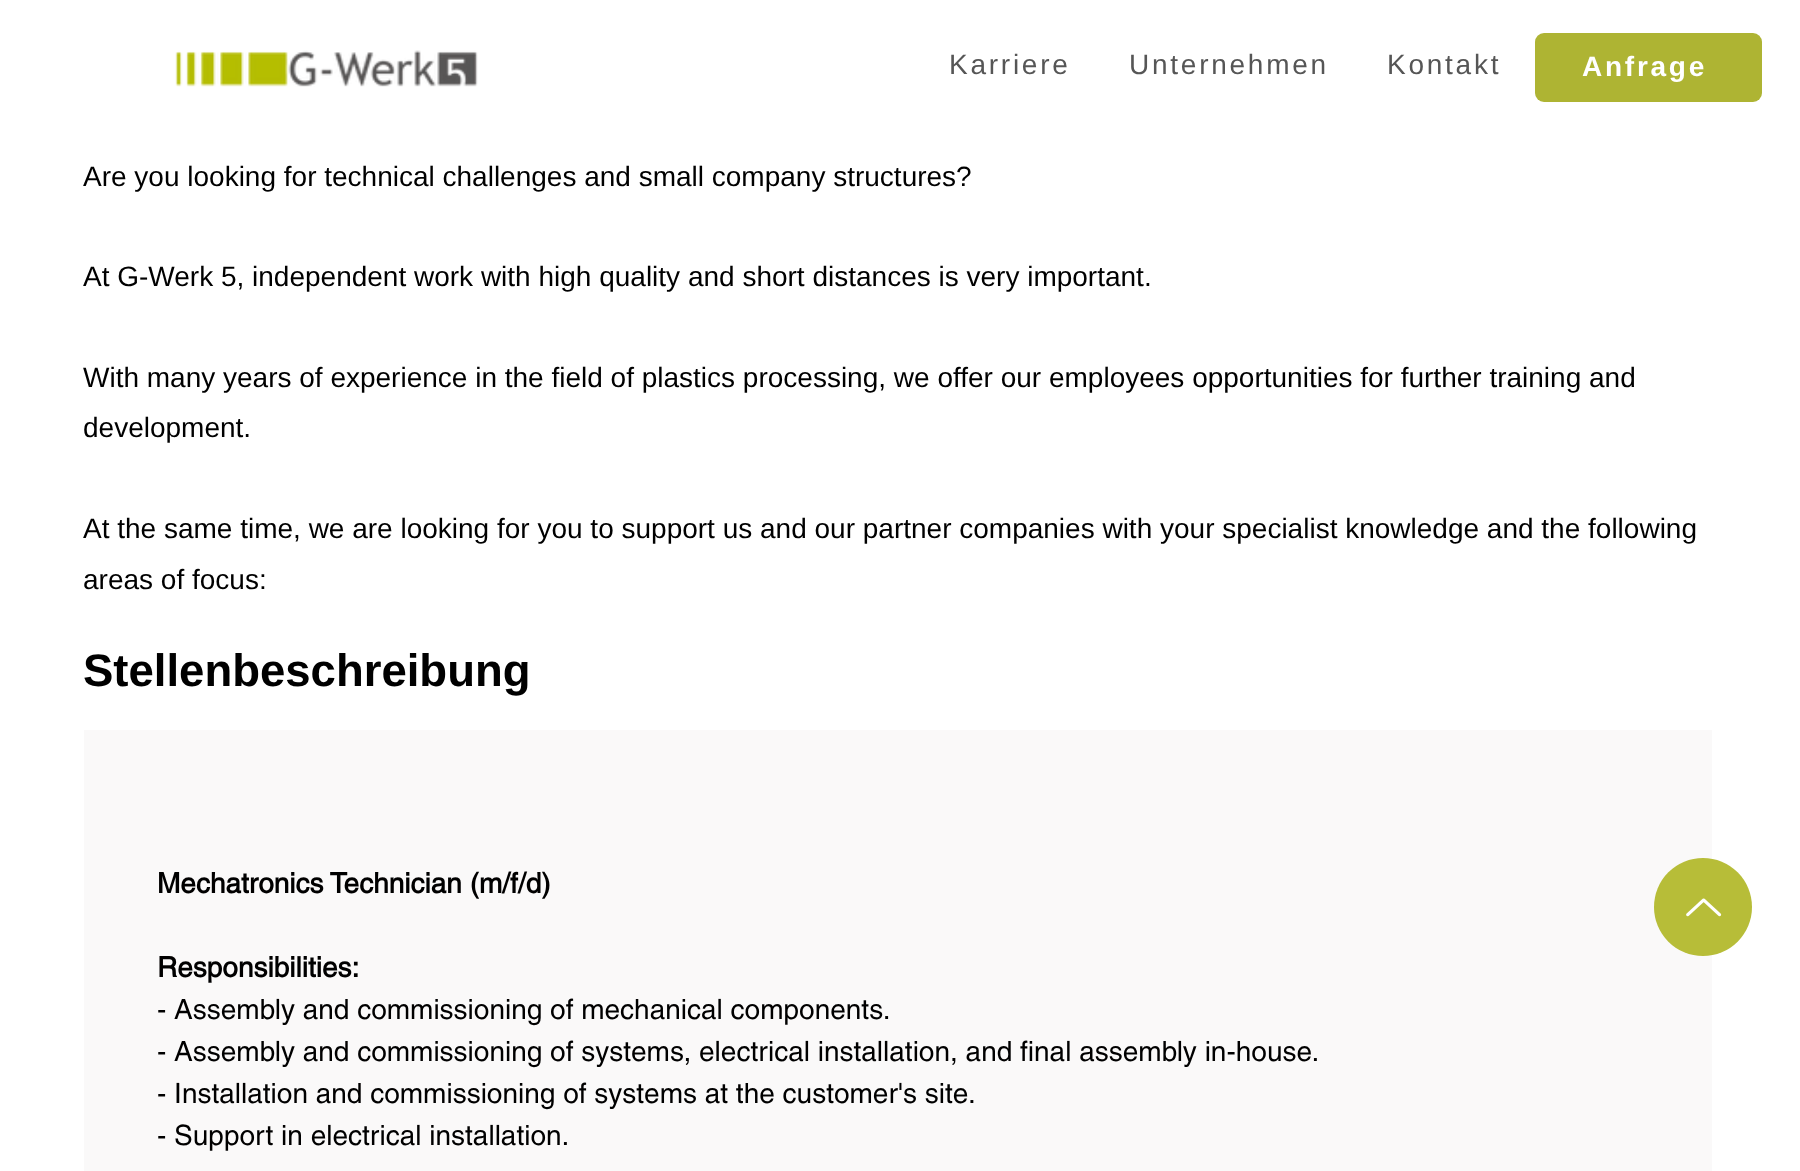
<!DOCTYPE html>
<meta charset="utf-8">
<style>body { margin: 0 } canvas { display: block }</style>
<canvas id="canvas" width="1800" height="1171"></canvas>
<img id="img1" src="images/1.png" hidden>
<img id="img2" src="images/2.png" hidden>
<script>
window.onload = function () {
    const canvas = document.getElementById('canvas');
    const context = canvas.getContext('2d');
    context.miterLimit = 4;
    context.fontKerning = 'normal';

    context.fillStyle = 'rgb(255, 255, 255)';
    context.fillRect(0, 0, 1800, 1171);
    context.drawImage(document.getElementById('img1'), 175, 50, 303, 37);
    context.fillStyle = 'rgb(174, 180, 51)';
    context.beginPath();
    context.roundRect(1535, 33, 227, 69, 9);
    context.fill();
    context.fillStyle = 'rgb(250, 249, 249)';
    context.fillRect(84, 730, 1628, 441);
    context.fillStyle = 'rgb(183, 189, 56)';
    context.beginPath();
    context.arc(1703, 907, 49, 0, 2 * Math.PI);
    context.fill();
    context.drawImage(document.getElementById('img2'), 1686, 898, 36, 19);
    context.letterSpacing = '2.75px';
    context.font = '28px Liberation Sans';
    context.fillStyle = 'rgb(86, 86, 86)';
    context.fillText('Karriere', 949, 74);
    context.fillText('Unternehmen', 1129, 74);
    context.fillText('Kontakt', 1387, 74);
    context.font = 'bold 28px Liberation Sans';
    context.fillStyle = 'rgb(255, 255, 255)';
    context.fillText('Anfrage', 1582, 76);
    context.letterSpacing = '0px';
    context.font = '28px Liberation Sans';
    context.fillStyle = 'rgb(0, 0, 0)';
    context.fillText('Are you looking for technical challenges and small company structures?', 83, 186);
    context.fillText('At G-Werk 5, independent work with high quality and short distances is very important.', 83, 286);
    context.fillText('With many years of experience in the field of plastics processing, we offer our employees opportunities for further training and', 83, 387);
    context.fillText('development.', 83, 437);
    context.fillText('At the same time, we are looking for you to support us and our partner companies with your specialist knowledge and the following', 83, 538);
    context.fillText('areas of focus:', 83, 589);
    context.font = 'bold 45.5px Liberation Sans';
    context.fillText('Stellenbeschreibung', 83, 686);
    context.font = 'bold 28px helvetica';
    context.fillText('Mechatronics Technician (m/f/d)', 157, 893);
    context.fillText('Responsibilities:', 157, 977);
    context.save();
    context.beginPath();
    context.rect(158, 863, 1512, 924);
    context.clip();
    context.font = '28px helvetica';
    context.fillText('- Assembly and commissioning of mechanical components.', 157, 1019);
    context.fillText('- Assembly and commissioning of systems, electrical installation, and final assembly in-house.', 157, 1061);
    context.fillText('- Installation and commissioning of systems at the customer\'s site.', 157, 1103);
    context.fillText('- Support in electrical installation.', 157, 1145);
    context.restore();
};
</script>
